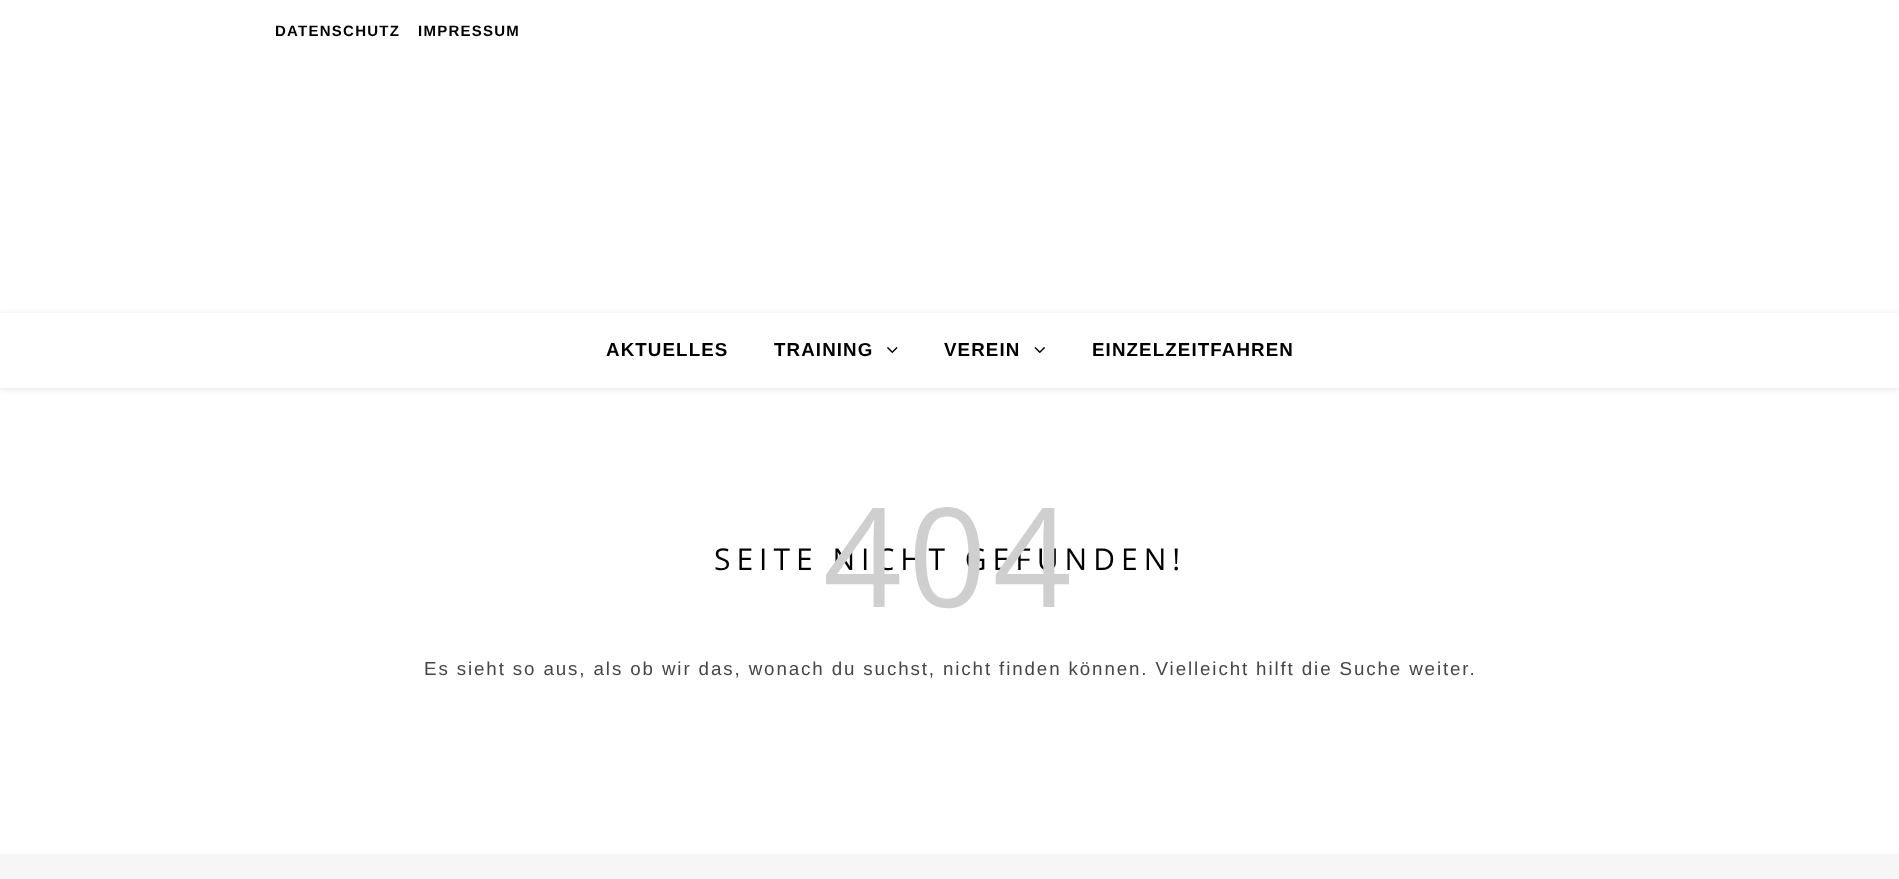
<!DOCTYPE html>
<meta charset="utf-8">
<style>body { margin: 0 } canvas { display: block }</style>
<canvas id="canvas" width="1899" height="879"></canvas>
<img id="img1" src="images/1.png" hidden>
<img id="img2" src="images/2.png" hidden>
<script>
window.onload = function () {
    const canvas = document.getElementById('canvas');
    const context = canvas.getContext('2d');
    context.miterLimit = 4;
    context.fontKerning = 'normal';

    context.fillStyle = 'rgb(255, 255, 255)';
    context.fillRect(0, 0, 1899, 879);
    context.fillStyle = 'rgba(0, 0, 0, 0.1)';
    context.filter = 'blur(3px)';
    context.beginPath();
    context.rect(0, 314, 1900, 75);
    context.fill();
    context.filter = 'none';
    context.fillStyle = 'rgb(255, 255, 255)';
    context.fillRect(0, 313, 1899, 75);
    context.drawImage(document.getElementById('img1'), 887, 347, 11, 6);
    context.drawImage(document.getElementById('img2'), 1034, 347, 11, 6);
    context.fillStyle = 'rgb(246, 246, 246)';
    context.fillRect(0, 854, 1899, 25);
    context.letterSpacing = '1.25px';
    context.font = 'bold 15px Liberation Sans';
    context.fillStyle = 'rgb(0, 0, 0)';
    context.fillText('DATENSCHUTZ', 275, 36);
    context.fillText('IMPRESSUM', 418, 36);
    context.letterSpacing = '1.1px';
    context.font = 'bold 18.75px Liberation Sans';
    context.fillText('AKTUELLES', 606, 356);
    context.fillText('TRAINING', 774, 356);
    context.fillText('VEREIN', 944, 356);
    context.fillText('EINZELZEITFAHREN', 1092, 356);
    context.letterSpacing = '6px';
    context.font = '30px Open Sans';
    context.fillText('SEITE NICHT GEFUNDEN!', 714, 570);
    context.font = '138px Open Sans';
    context.fillStyle = 'rgb(207, 207, 207)';
    context.fillText('404', 823, 607);
    context.letterSpacing = '1.88px';
    context.font = '18.75px Liberation Sans';
    context.fillStyle = 'rgb(70, 70, 70)';
    context.fillText('Es sieht so aus, als ob wir das, wonach du suchst, nicht finden können. Vielleicht hilft die Suche weiter.', 424, 675);
};
</script>
